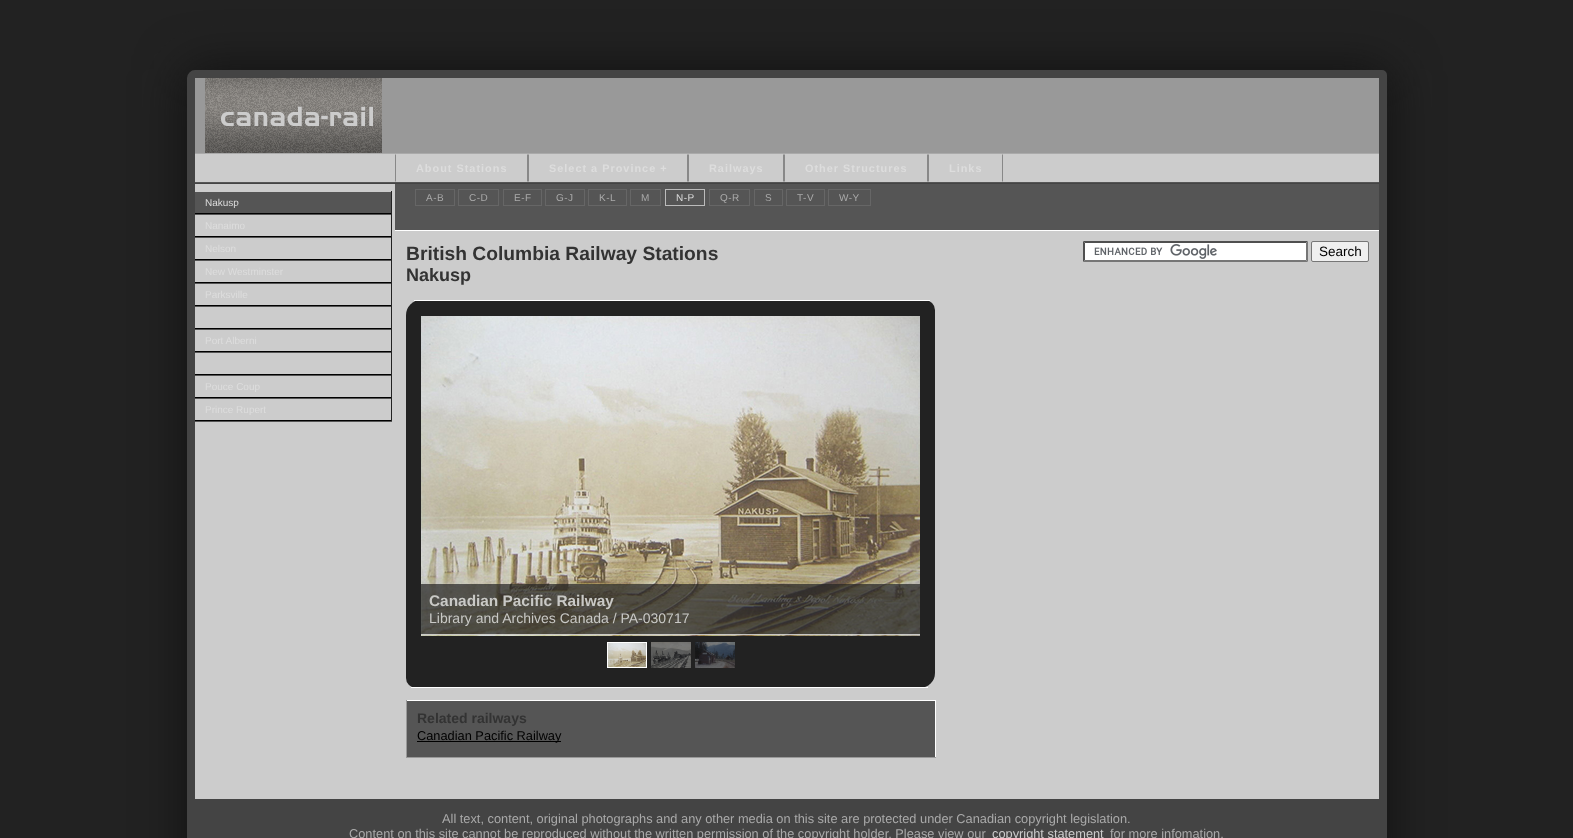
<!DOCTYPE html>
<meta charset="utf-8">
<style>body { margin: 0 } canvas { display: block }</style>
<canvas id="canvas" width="1573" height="838"></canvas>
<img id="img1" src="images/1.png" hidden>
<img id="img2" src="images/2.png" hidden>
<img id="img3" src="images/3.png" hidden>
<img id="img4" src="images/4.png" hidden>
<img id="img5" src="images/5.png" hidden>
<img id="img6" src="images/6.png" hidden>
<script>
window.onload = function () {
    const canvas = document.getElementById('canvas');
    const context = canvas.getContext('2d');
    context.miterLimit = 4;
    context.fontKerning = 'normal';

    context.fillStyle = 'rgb(34, 34, 34)';
    context.fillRect(0, 0, 1573, 838);
    context.fillStyle = 'rgb(17, 17, 17)';
    context.filter = 'blur(25px)';
    context.beginPath();
    context.roundRect(186, 69, 1202, 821, 9);
    context.fill();
    context.filter = 'none';
    context.fillStyle = 'rgb(204, 204, 204)';
    context.beginPath();
    context.moveTo(195, 74);
    context.lineTo(1382, 74);
    context.bezierCurveTo(1382.5, 74, 1383, 74.5, 1383, 75);
    context.lineTo(1383, 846);
    context.bezierCurveTo(1383, 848, 1381, 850, 1379, 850);
    context.lineTo(192, 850);
    context.bezierCurveTo(191.5, 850, 191, 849.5, 191, 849);
    context.lineTo(191, 78);
    context.bezierCurveTo(191, 76, 193, 74, 195, 74);
    context.closePath();
    context.fill();
    context.strokeStyle = 'rgb(68, 68, 68)';
    context.lineWidth = 8;
    context.stroke();
    context.fillStyle = 'rgb(153, 153, 153)';
    context.fillRect(195, 78, 1184, 75);
    context.drawImage(document.getElementById('img1'), 205, 78, 177, 75);
    context.fillStyle = 'rgb(170, 170, 170)';
    context.fillRect(195, 153, 1184, 1);
    context.fillStyle = 'rgb(85, 85, 85)';
    context.fillRect(195, 182, 1184, 1);
    context.fillStyle = 'rgb(136, 136, 136)';
    context.beginPath();
    context.moveTo(528, 154);
    context.lineTo(528, 182);
    context.lineTo(527, 181);
    context.lineTo(527, 155);
    context.closePath();
    context.fill();
    context.beginPath();
    context.moveTo(395, 182);
    context.lineTo(395, 154);
    context.lineTo(396, 155);
    context.lineTo(396, 181);
    context.closePath();
    context.fill();
    context.beginPath();
    context.moveTo(688, 154);
    context.lineTo(688, 182);
    context.lineTo(687, 181);
    context.lineTo(687, 155);
    context.closePath();
    context.fill();
    context.beginPath();
    context.moveTo(528, 182);
    context.lineTo(528, 154);
    context.lineTo(529, 155);
    context.lineTo(529, 181);
    context.closePath();
    context.fill();
    context.beginPath();
    context.moveTo(784, 154);
    context.lineTo(784, 182);
    context.lineTo(783, 181);
    context.lineTo(783, 155);
    context.closePath();
    context.fill();
    context.beginPath();
    context.moveTo(688, 182);
    context.lineTo(688, 154);
    context.lineTo(689, 155);
    context.lineTo(689, 181);
    context.closePath();
    context.fill();
    context.beginPath();
    context.moveTo(928, 154);
    context.lineTo(928, 182);
    context.lineTo(927, 181);
    context.lineTo(927, 155);
    context.closePath();
    context.fill();
    context.beginPath();
    context.moveTo(784, 182);
    context.lineTo(784, 154);
    context.lineTo(785, 155);
    context.lineTo(785, 181);
    context.closePath();
    context.fill();
    context.beginPath();
    context.moveTo(1003, 154);
    context.lineTo(1003, 182);
    context.lineTo(1002, 181);
    context.lineTo(1002, 155);
    context.closePath();
    context.fill();
    context.beginPath();
    context.moveTo(928, 182);
    context.lineTo(928, 154);
    context.lineTo(929, 155);
    context.lineTo(929, 181);
    context.closePath();
    context.fill();
    context.fillStyle = 'rgb(34, 34, 34)';
    context.fillRect(391, 191, 1, 231);
    context.fillStyle = 'rgb(85, 85, 85)';
    context.fillRect(195, 421, 197, 1);
    context.fillRect(195, 192, 196, 21);
    context.fillStyle = 'rgb(0, 0, 0)';
    context.fillRect(195, 213, 196, 1);
    context.fillStyle = 'rgb(85, 85, 85)';
    context.fillRect(195, 214, 196, 1);
    context.fillStyle = 'rgb(0, 0, 0)';
    context.fillRect(195, 236, 196, 1);
    context.fillStyle = 'rgb(85, 85, 85)';
    context.fillRect(195, 237, 196, 1);
    context.fillStyle = 'rgb(0, 0, 0)';
    context.fillRect(195, 259, 196, 1);
    context.fillStyle = 'rgb(85, 85, 85)';
    context.fillRect(195, 260, 196, 1);
    context.fillStyle = 'rgb(0, 0, 0)';
    context.fillRect(195, 282, 196, 1);
    context.fillStyle = 'rgb(85, 85, 85)';
    context.fillRect(195, 283, 196, 1);
    context.fillStyle = 'rgb(0, 0, 0)';
    context.fillRect(195, 305, 196, 1);
    context.fillStyle = 'rgb(85, 85, 85)';
    context.fillRect(195, 306, 196, 1);
    context.fillStyle = 'rgb(0, 0, 0)';
    context.fillRect(195, 328, 196, 1);
    context.fillStyle = 'rgb(85, 85, 85)';
    context.fillRect(195, 329, 196, 1);
    context.fillStyle = 'rgb(0, 0, 0)';
    context.fillRect(195, 351, 196, 1);
    context.fillStyle = 'rgb(85, 85, 85)';
    context.fillRect(195, 352, 196, 1);
    context.fillStyle = 'rgb(0, 0, 0)';
    context.fillRect(195, 374, 196, 1);
    context.fillStyle = 'rgb(85, 85, 85)';
    context.fillRect(195, 375, 196, 1);
    context.fillStyle = 'rgb(0, 0, 0)';
    context.fillRect(195, 397, 196, 1);
    context.fillStyle = 'rgb(85, 85, 85)';
    context.fillRect(195, 398, 196, 1);
    context.fillStyle = 'rgb(0, 0, 0)';
    context.fillRect(195, 420, 196, 1);
    context.fillStyle = 'rgb(68, 68, 68)';
    context.fillRect(195, 183, 1184, 1);
    context.fillStyle = 'rgb(85, 85, 85)';
    context.fillRect(395, 184, 984, 46);
    context.fillStyle = 'rgb(255, 255, 255)';
    context.fillRect(395, 230, 984, 1);
    context.strokeStyle = 'rgb(102, 102, 102)';
    context.lineWidth = 1;
    context.strokeRect(415.5, 189.5, 39, 16);
    context.strokeRect(458.5, 189.5, 40, 16);
    context.strokeRect(503.5, 189.5, 38, 16);
    context.strokeRect(545.5, 189.5, 39, 16);
    context.strokeRect(588.5, 189.5, 38, 16);
    context.strokeRect(630.5, 189.5, 30, 16);
    context.strokeStyle = 'rgb(187, 187, 187)';
    context.strokeRect(665.5, 189.5, 39, 16);
    context.strokeStyle = 'rgb(102, 102, 102)';
    context.strokeRect(709.5, 189.5, 40, 16);
    context.strokeRect(754.5, 189.5, 28, 16);
    context.strokeRect(786.5, 189.5, 38, 16);
    context.strokeRect(828.5, 189.5, 42, 16);
    context.fillStyle = 'rgb(34, 34, 34)';
    context.beginPath();
    context.roundRect(406, 300, 529, 388, [15, 10, 15, 10]);
    context.fill();
    context.fillStyle = 'rgb(255, 255, 255)';
    context.fillRect(414, 300, 516, 1);
    context.fillRect(411, 687, 517, 1);
    context.drawImage(document.getElementById('img2'), 421, 316, 499, 320);
    context.fillStyle = 'rgba(34, 34, 34, 0.7)';
    context.fillRect(421, 584, 499, 51);
    context.fillStyle = 'rgba(255, 255, 255, 0.7)';
    context.fillRect(421, 634, 499, 1);
    context.strokeStyle = 'rgb(255, 255, 255)';
    context.strokeRect(607.5, 642.5, 39, 25);
    context.drawImage(document.getElementById('img3'), 608, 643, 38, 24);
    context.drawImage(document.getElementById('img4'), 651, 642, 40, 26);
    context.drawImage(document.getElementById('img5'), 695, 642, 40, 26);
    context.fillStyle = 'rgb(85, 85, 85)';
    context.fillRect(407, 701, 528, 56);
    context.fillStyle = 'rgb(255, 255, 255)';
    context.fillRect(406, 700, 530, 1);
    context.fillRect(935, 700, 1, 58);
    context.fillStyle = 'rgb(153, 153, 153)';
    context.fillRect(406, 757, 530, 1);
    context.fillRect(406, 700, 1, 58);
    context.fillStyle = 'rgb(0, 0, 0)';
    context.fillRect(417, 741, 144, 1);
    context.fillStyle = 'rgb(255, 255, 255)';
    context.fillRect(1083, 241, 225, 21);
    context.drawImage(document.getElementById('img6'), 1094, 244, 123, 15);
    context.fillStyle = 'rgb(79, 79, 79)';
    context.beginPath();
    context.moveTo(1083, 241);
    context.lineTo(1308, 241);
    context.lineTo(1306, 243);
    context.lineTo(1085, 243);
    context.closePath();
    context.fill();
    context.fillStyle = 'rgb(118, 118, 118)';
    context.beginPath();
    context.moveTo(1308, 241);
    context.lineTo(1308, 262);
    context.lineTo(1306, 260);
    context.lineTo(1306, 243);
    context.closePath();
    context.fill();
    context.beginPath();
    context.moveTo(1308, 262);
    context.lineTo(1083, 262);
    context.lineTo(1085, 260);
    context.lineTo(1306, 260);
    context.closePath();
    context.fill();
    context.fillStyle = 'rgb(79, 79, 79)';
    context.beginPath();
    context.moveTo(1083, 262);
    context.lineTo(1083, 241);
    context.lineTo(1085, 243);
    context.lineTo(1085, 260);
    context.closePath();
    context.fill();
    context.fillStyle = 'rgb(239, 239, 239)';
    context.beginPath();
    context.roundRect(1311.5, 241.5, 57, 20, 1.5);
    context.fill();
    context.strokeStyle = 'rgb(118, 118, 118)';
    context.stroke();
    context.fillStyle = 'rgb(68, 68, 68)';
    context.fillRect(195, 799, 1184, 39);
    context.letterSpacing = '1px';
    context.font = 'bold 10.9px Liberation Sans';
    context.fillStyle = 'rgb(221, 221, 221)';
    context.fillText('About Stations', 416, 172);
    context.fillText('Select a Province +', 549, 172);
    context.fillText('Railways', 709, 172);
    context.fillText('Other Structures', 805, 172);
    context.fillText('Links', 949, 172);
    context.letterSpacing = '0px';
    context.font = '10px Liberation Sans';
    context.fillText('Nakusp', 205, 206);
    context.fillText('Nanaimo', 205, 229);
    context.fillText('Nelson', 205, 252);
    context.fillText('New Westminster', 205, 275);
    context.fillText('Parksville', 205, 298);
    context.fillText('Port Alberni', 205, 344);
    context.fillText('Pouce Coup', 205, 390);
    context.fillText('Prince Rupert', 205, 413);
    context.letterSpacing = '0.5px';
    context.fillStyle = 'rgb(170, 170, 170)';
    context.fillText('A-B', 426, 201);
    context.fillText('C-D', 469, 201);
    context.fillText('E-F', 514, 201);
    context.fillText('G-J', 556, 201);
    context.fillText('K-L', 599, 201);
    context.fillText('M', 641, 201);
    context.fillStyle = 'rgb(221, 221, 221)';
    context.fillText('N-P', 676, 201);
    context.fillStyle = 'rgb(170, 170, 170)';
    context.fillText('Q-R', 720, 201);
    context.fillText('S', 765, 201);
    context.fillText('T-V', 797, 201);
    context.fillText('W-Y', 839, 201);
    context.letterSpacing = '0px';
    context.font = 'bold 19.25px Liberation Sans';
    context.fillStyle = 'rgb(51, 51, 51)';
    context.fillText('British Columbia Railway Stations', 406, 260);
    context.font = 'bold 18px Liberation Sans';
    context.fillText('Nakusp', 406, 281);
    context.font = 'bold 15.4px Liberation Sans';
    context.fillStyle = 'rgb(201, 201, 198)';
    context.fillText('Canadian Pacific Railway', 429, 606);
    context.font = '14px Liberation Sans';
    context.fillText('Library and Archives Canada / PA-030717', 429, 623);
    context.font = 'bold 14px Liberation Sans';
    context.fillStyle = 'rgb(51, 51, 51)';
    context.fillText('Related railways', 417, 723);
    context.font = '12.8px Liberation Sans';
    context.fillStyle = 'rgb(0, 0, 0)';
    context.fillText('Canadian Pacific Railway', 417, 740);
    context.font = '13.5px Liberation Sans';
    context.fillText('Search', 1319, 256);
    context.font = '12.8px Liberation Sans';
    context.fillStyle = 'rgb(170, 170, 170)';
    context.fillText('All text, content, original photographs and any other media on this site are protected under Canadian copyright legislation.', 442, 823);
    context.fillText('Content on this site cannot be reproduced without the written permission of the copyright holder. Please view our', 349, 838);
    context.fillStyle = 'rgb(204, 204, 204)';
    context.fillText('copyright statement', 992, 838);
    context.fillStyle = 'rgb(170, 170, 170)';
    context.fillText('for more infomation.', 1110, 838);
};
</script>
